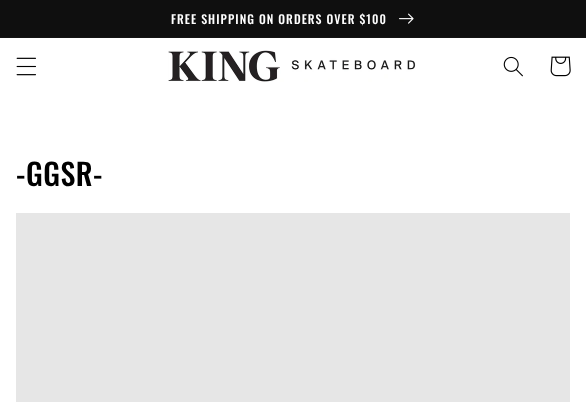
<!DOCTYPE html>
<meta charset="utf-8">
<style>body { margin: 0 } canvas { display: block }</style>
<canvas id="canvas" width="586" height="402"></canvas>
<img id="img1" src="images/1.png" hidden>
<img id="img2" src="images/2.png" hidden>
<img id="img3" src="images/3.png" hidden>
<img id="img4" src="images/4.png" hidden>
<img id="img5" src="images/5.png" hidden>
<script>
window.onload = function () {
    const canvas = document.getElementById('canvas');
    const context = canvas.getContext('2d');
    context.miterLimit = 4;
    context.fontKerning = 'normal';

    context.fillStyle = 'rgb(255, 255, 255)';
    context.fillRect(0, 0, 586, 402);
    context.fillStyle = 'rgb(20, 20, 20)';
    context.fillRect(0, 37, 586, 1);
    context.fillStyle = 'rgb(15, 15, 15)';
    context.fillRect(0, 0, 586, 37);
    context.drawImage(document.getElementById('img1'), 399, 13, 15, 11);
    context.drawImage(document.getElementById('img2'), 16, 57, 20, 19);
    context.drawImage(document.getElementById('img3'), 168, 50, 248, 32);
    context.drawImage(document.getElementById('img4'), 503, 56, 20, 21);
    context.drawImage(document.getElementById('img5'), 550, 56, 21, 21);
    context.fillStyle = 'rgb(230, 230, 230)';
    context.fillRect(16, 213, 554, 189);
    context.letterSpacing = '1.05px';
    context.font = '500 12px Oswald';
    context.fillStyle = 'rgb(255, 255, 255)';
    context.fillText('FREE SHIPPING ON ORDERS OVER $100', 171, 24);
    context.letterSpacing = '0.5px';
    context.font = '500 30px Oswald';
    context.fillStyle = 'rgb(0, 0, 0)';
    context.fillText('-GGSR-', 16, 186);
};
</script>
